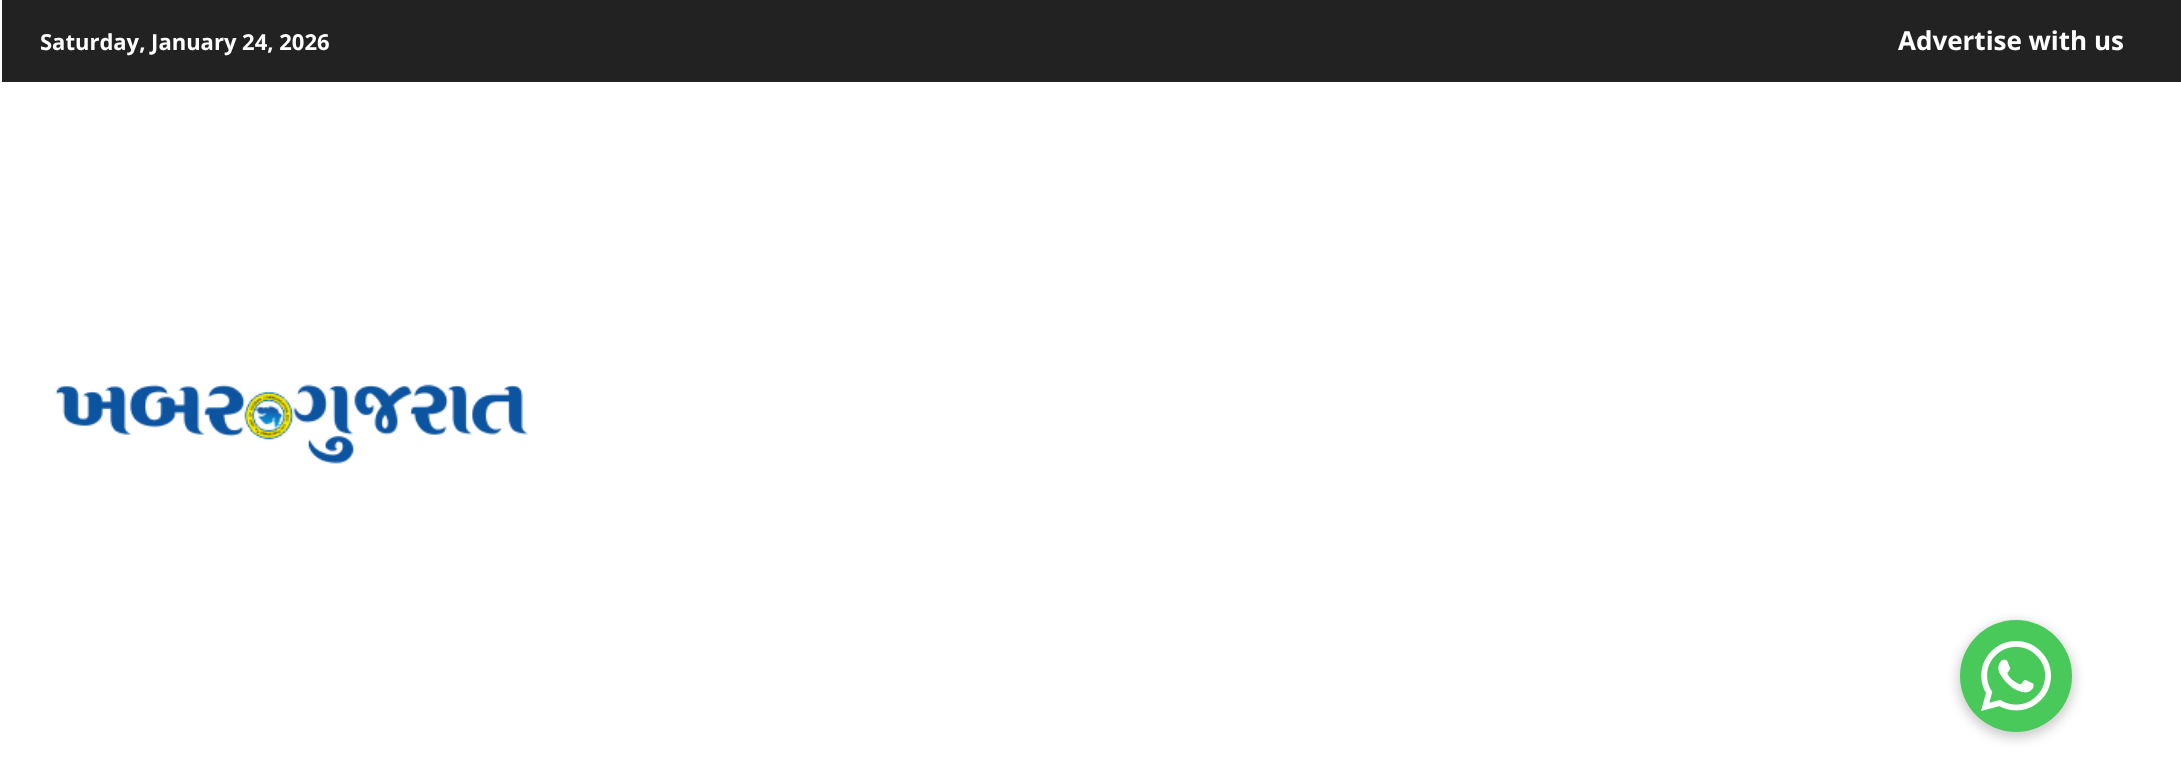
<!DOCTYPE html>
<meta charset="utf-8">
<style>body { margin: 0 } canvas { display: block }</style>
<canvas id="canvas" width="2181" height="769"></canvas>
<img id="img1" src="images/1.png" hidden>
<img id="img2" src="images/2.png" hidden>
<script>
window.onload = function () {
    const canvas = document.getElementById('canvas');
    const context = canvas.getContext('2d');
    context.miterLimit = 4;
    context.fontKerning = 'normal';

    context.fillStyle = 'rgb(255, 255, 255)';
    context.fillRect(0, 0, 2181, 769);
    context.fillStyle = 'rgb(34, 34, 34)';
    context.fillRect(2, 0, 2179, 82);
    context.drawImage(document.getElementById('img1'), 55, 384, 473, 80);
    context.fillStyle = 'rgba(0, 0, 0, 0.2)';
    context.filter = 'blur(6px)';
    context.beginPath();
    context.roundRect(1958, 622, 116, 116, 58);
    context.fill();
    context.filter = 'none';
    context.fillStyle = 'rgb(73, 201, 90)';
    context.beginPath();
    context.arc(2016, 676, 56, 0, 2 * Math.PI);
    context.fill();
    context.drawImage(document.getElementById('img2'), 1981, 641, 70, 70);
    context.font = 'bold 22px Open Sans';
    context.fillStyle = 'rgb(255, 255, 255)';
    context.fillText('Saturday, January 24, 2026', 40, 50);
    context.font = 'bold 26px Open Sans';
    context.fillText('Advertise with us', 1898, 50);
};
</script>
